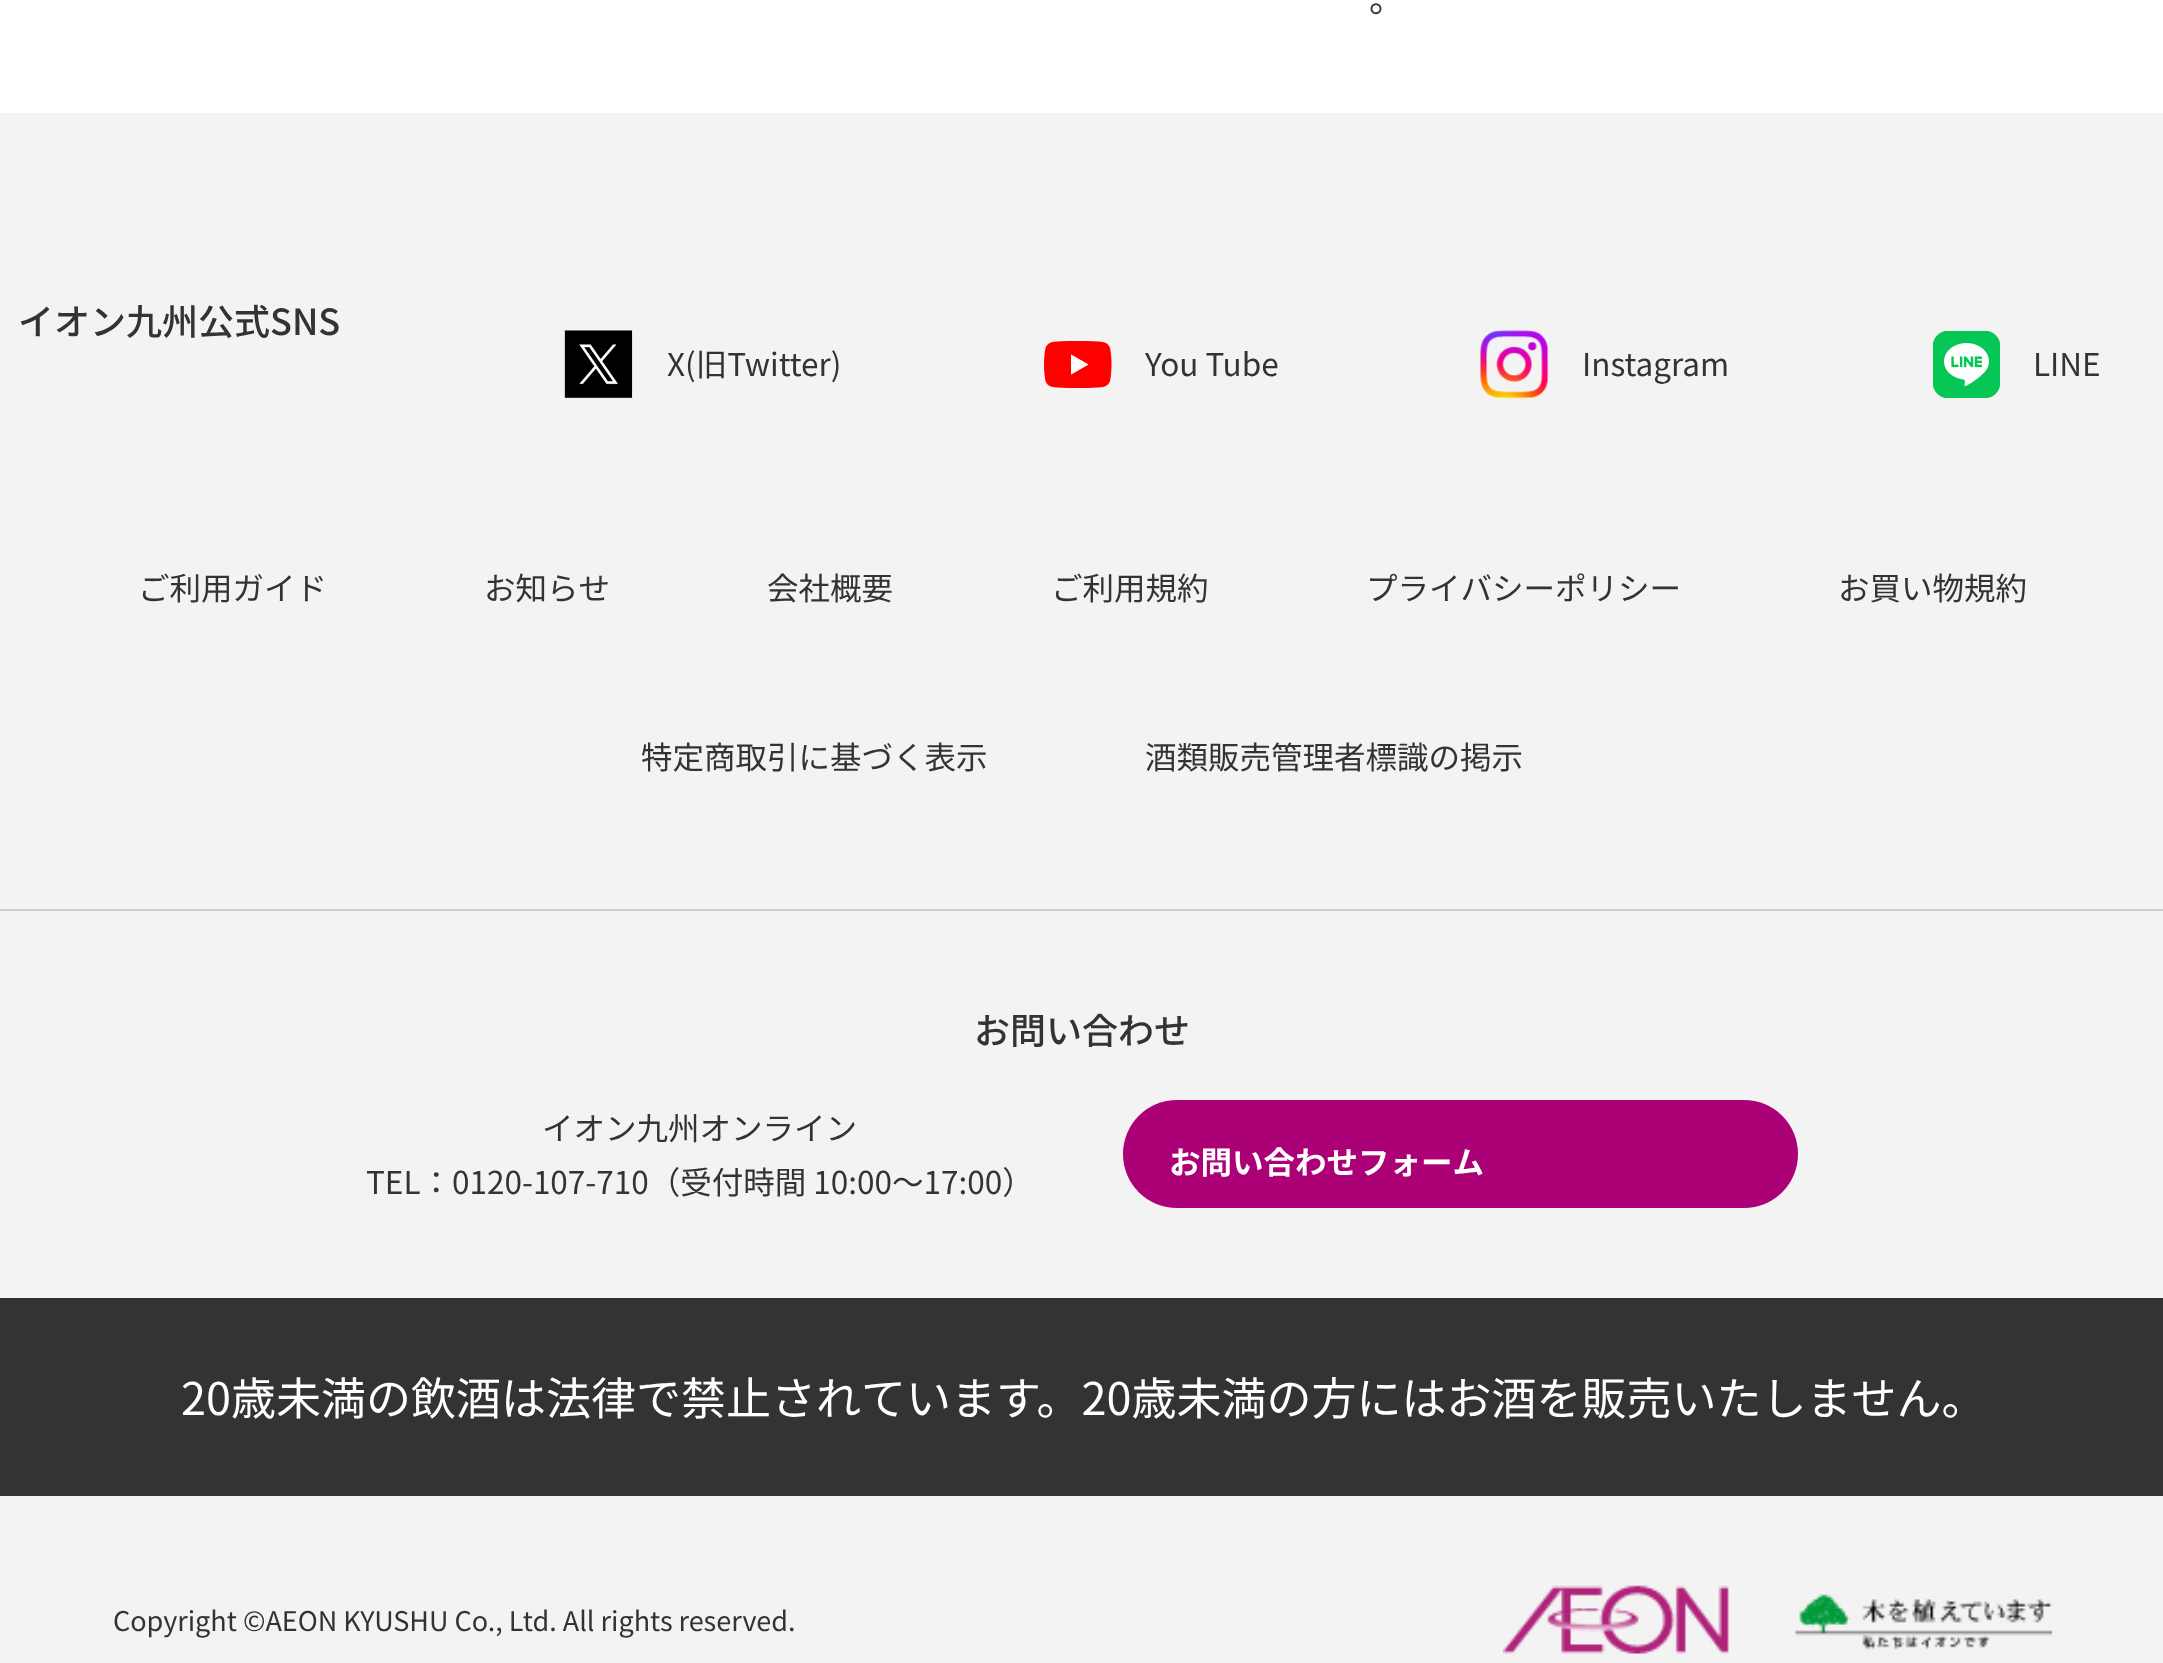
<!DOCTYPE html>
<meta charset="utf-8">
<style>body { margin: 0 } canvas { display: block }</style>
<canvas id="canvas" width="2163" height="1663"></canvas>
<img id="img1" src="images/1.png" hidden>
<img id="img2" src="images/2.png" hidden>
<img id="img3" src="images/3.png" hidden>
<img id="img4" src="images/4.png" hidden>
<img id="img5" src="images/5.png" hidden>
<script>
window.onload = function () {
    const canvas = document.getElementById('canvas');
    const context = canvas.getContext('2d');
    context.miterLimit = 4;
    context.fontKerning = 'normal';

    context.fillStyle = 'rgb(255, 255, 255)';
    context.fillRect(0, 0, 2163, 1663);
    context.fillStyle = 'rgb(243, 243, 243)';
    context.fillRect(0, 113, 2163, 1550);
    context.drawImage(document.getElementById('img1'), 564, 330, 69, 68);
    context.drawImage(document.getElementById('img2'), 1044, 341, 68, 47);
    context.drawImage(document.getElementById('img3'), 1480, 330, 69, 69);
    context.drawImage(document.getElementById('img4'), 1933, 331, 67, 67);
    context.fillStyle = 'rgb(204, 204, 204)';
    context.fillRect(0, 909, 2163, 2);
    context.fillStyle = 'rgb(172, 0, 119)';
    context.beginPath();
    context.roundRect(1123, 1100, 675, 108, 54);
    context.fill();
    context.fillStyle = 'rgb(51, 51, 51)';
    context.fillRect(0, 1298, 2163, 198);
    context.drawImage(document.getElementById('img5'), 1503, 1585, 549, 69);
    context.font = '36px Noto Sans JP';
    context.fillText('。', 1369, 12);
    context.font = '500 36px Noto Sans JP';
    context.fillText('イオン九州公式SNS', 18, 335);
    context.font = '31.5px Noto Sans JP';
    context.fillText('X(旧Twitter)', 667, 376);
    context.fillText('You Tube', 1145, 376);
    context.fillText('Instagram', 1582, 376);
    context.fillText('LINE', 2033, 376);
    context.fillText('ご利用ガイド', 138, 600);
    context.fillText('お知らせ', 484, 600);
    context.fillText('会社概要', 767, 600);
    context.fillText('ご利用規約', 1051, 600);
    context.fillText('プライバシーポリシー', 1366, 600);
    context.fillText('お買い物規約', 1838, 600);
    context.fillText('特定商取引に基づく表示', 641, 769);
    context.fillText('酒類販売管理者標識の掲示', 1145, 769);
    context.font = '500 36px Noto Sans JP';
    context.fillText('お問い合わせ', 974, 1044);
    context.font = '31.5px Noto Sans JP';
    context.fillText('イオン九州オンライン', 542, 1140);
    context.fillText('TEL：0120-107-710（受付時間 10:00〜17:00）', 366, 1194);
    context.font = 'bold 31.5px Noto Sans JP';
    context.fillStyle = 'rgb(255, 255, 255)';
    context.fillText('お問い合わせフォーム', 1169, 1174);
    context.font = '45px Noto Sans JP';
    context.fillText('20歳未満の飲酒は法律で禁止されています。20歳未満の方にはお酒を販売いたしません。', 181, 1415);
    context.font = '27px Noto Sans JP';
    context.fillStyle = 'rgb(51, 51, 51)';
    context.fillText('Copyright ©AEON KYUSHU Co., Ltd. All rights reserved.', 113, 1631);
};
</script>
